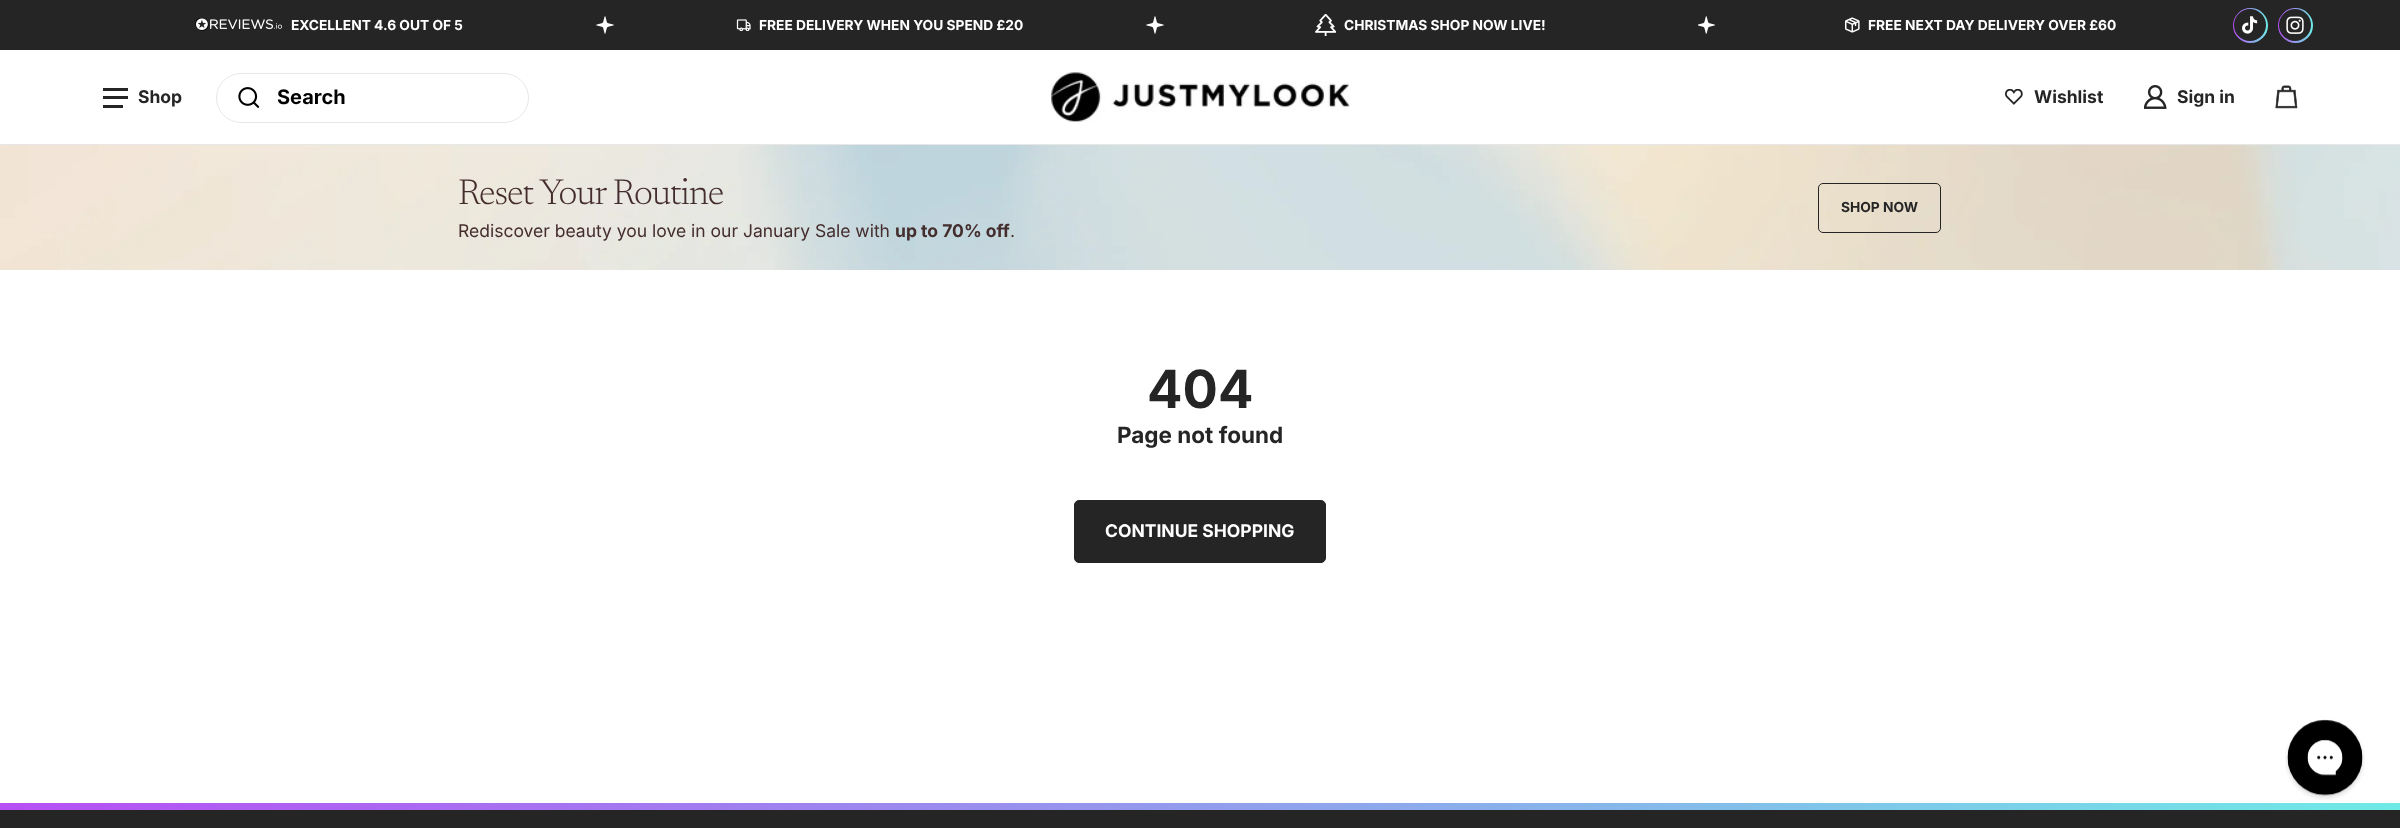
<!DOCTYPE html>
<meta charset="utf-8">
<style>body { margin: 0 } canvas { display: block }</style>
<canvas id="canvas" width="2400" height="828"></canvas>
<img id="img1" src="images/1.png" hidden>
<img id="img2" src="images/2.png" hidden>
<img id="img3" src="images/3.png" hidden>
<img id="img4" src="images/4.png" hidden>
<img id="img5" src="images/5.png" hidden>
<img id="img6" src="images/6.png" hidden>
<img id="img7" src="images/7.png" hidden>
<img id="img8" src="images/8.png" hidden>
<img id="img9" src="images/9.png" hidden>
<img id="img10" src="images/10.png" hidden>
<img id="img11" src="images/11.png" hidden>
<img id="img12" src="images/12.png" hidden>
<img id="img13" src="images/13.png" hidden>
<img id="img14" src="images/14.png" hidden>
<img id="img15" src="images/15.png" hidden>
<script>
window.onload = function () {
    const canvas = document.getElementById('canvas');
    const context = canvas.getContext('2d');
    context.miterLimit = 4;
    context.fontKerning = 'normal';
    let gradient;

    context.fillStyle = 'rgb(255, 255, 255)';
    context.fillRect(0, 0, 2400, 828);
    context.fillStyle = 'rgb(37, 37, 37)';
    context.fillRect(0, 0, 2400, 50);
    context.drawImage(document.getElementById('img1'), 195, 18, 88, 13);
    context.drawImage(document.getElementById('img2'), 596, 16, 18, 18);
    context.drawImage(document.getElementById('img3'), 736, 19, 15, 12);
    context.drawImage(document.getElementById('img2'), 1146, 16, 18, 18);
    context.drawImage(document.getElementById('img4'), 1315, 14, 21, 22);
    context.drawImage(document.getElementById('img5'), 1698, 16, 17, 18);
    context.drawImage(document.getElementById('img6'), 1845, 17, 15, 16);
    gradient = context.createLinearGradient(2233, 25, 2268, 25);
    gradient.addColorStop(0, 'rgb(183, 79, 244)');
    gradient.addColorStop(1, 'rgb(110, 234, 230)');
    context.fillStyle = gradient;
    context.beginPath();
    context.arc(2250.5, 25.5, 17.5, 0, 2 * Math.PI);
    context.fill();
    context.fillStyle = 'rgb(37, 37, 37)';
    context.beginPath();
    context.arc(2250, 25, 16, 0, 2 * Math.PI);
    context.fill();
    context.drawImage(document.getElementById('img7'), 2242, 16, 16, 18);
    gradient = context.createLinearGradient(2278, 25, 2313, 25);
    gradient.addColorStop(0, 'rgb(183, 79, 244)');
    gradient.addColorStop(1, 'rgb(110, 234, 230)');
    context.fillStyle = gradient;
    context.beginPath();
    context.arc(2295.5, 25.5, 17.5, 0, 2 * Math.PI);
    context.fill();
    context.fillStyle = 'rgb(37, 37, 37)';
    context.beginPath();
    context.arc(2295, 25, 16, 0, 2 * Math.PI);
    context.fill();
    context.drawImage(document.getElementById('img8'), 2286, 16, 18, 18);
    context.fillStyle = 'rgb(231, 231, 231)';
    context.fillRect(0, 144, 2400, 1);
    context.fillStyle = 'rgb(37, 37, 37)';
    context.fillRect(103, 88, 25, 3);
    context.fillRect(103, 96, 25, 3);
    context.fillRect(103, 105, 20, 3);
    context.beginPath();
    context.roundRect(216.5, 73.5, 312, 49, 24.5);
    context.strokeStyle = 'rgb(231, 231, 231)';
    context.stroke();
    context.drawImage(document.getElementById('img9'), 238, 87, 22, 21);
    context.drawImage(document.getElementById('img10'), 1050, 72, 300, 50);
    context.drawImage(document.getElementById('img11'), 2005, 89, 18, 16);
    context.drawImage(document.getElementById('img12'), 2144, 85, 23, 24);
    context.drawImage(document.getElementById('img13'), 2275, 85, 23, 24);
    context.drawImage(document.getElementById('img14'), 0, 145, 2400, 125);
    context.beginPath();
    context.roundRect(1818.5, 183.5, 122, 49, 4.5);
    context.strokeStyle = 'rgb(37, 37, 37)';
    context.stroke();
    context.beginPath();
    context.roundRect(1074.5, 500.5, 251, 62, 4.5);
    context.fill();
    context.stroke();
    context.drawImage(document.getElementById('img15'), 2285, 719, 80, 81);
    gradient = context.createLinearGradient(0, 806, 2400, 806);
    gradient.addColorStop(0, 'rgb(183, 79, 244)');
    gradient.addColorStop(1, 'rgb(110, 234, 230)');
    context.fillStyle = gradient;
    context.fillRect(0, 803, 2400, 7);
    context.fillStyle = 'rgb(37, 37, 37)';
    context.fillRect(0, 810, 2400, 18);
    context.font = 'bold 13.75px Inter';
    context.fillStyle = 'rgb(255, 255, 255)';
    context.fillText('EXCELLENT 4.6 OUT OF 5', 291, 30);
    context.fillText('FREE DELIVERY WHEN YOU SPEND £20', 759, 30);
    context.fillText('CHRISTMAS SHOP NOW LIVE!', 1344, 30);
    context.fillText('FREE NEXT DAY DELIVERY OVER £60', 1868, 30);
    context.font = 'bold 17.5px Inter';
    context.fillStyle = 'rgb(37, 37, 37)';
    context.fillText('Shop', 138, 103);
    context.font = 'bold 20px Inter';
    context.fillStyle = 'rgb(0, 0, 0)';
    context.fillText('Search', 277, 104);
    context.font = 'bold 17.5px Inter';
    context.fillStyle = 'rgb(37, 37, 37)';
    context.fillText('Wishlist', 2034, 103);
    context.fillText('Sign in', 2177, 103);
    context.letterSpacing = '-1.1px';
    context.font = '300 36.25px Newsreader';
    context.fillStyle = 'rgb(68, 45, 45)';
    context.fillText('Reset Your Routine', 458, 204);
    context.letterSpacing = '0px';
    context.font = '17.5px Inter';
    context.fillText('Rediscover beauty you love in our January Sale with', 458, 237);
    context.font = 'bold 17.5px Inter';
    context.fillText('up to 70% off', 895, 237);
    context.font = '17.5px Inter';
    context.fillText('.', 1010, 237);
    context.font = 'bold 13.75px Inter';
    context.fillStyle = 'rgb(37, 37, 37)';
    context.fillText('SHOP NOW', 1841, 212);
    context.font = 'bold 52.5px Inter';
    context.fillText('404', 1147, 408);
    context.font = 'bold 22.5px Inter';
    context.fillText('Page not found', 1117, 443);
    context.font = 'bold 17.5px Inter';
    context.fillStyle = 'rgb(255, 255, 255)';
    context.fillText('CONTINUE SHOPPING', 1105, 537);
};
</script>
